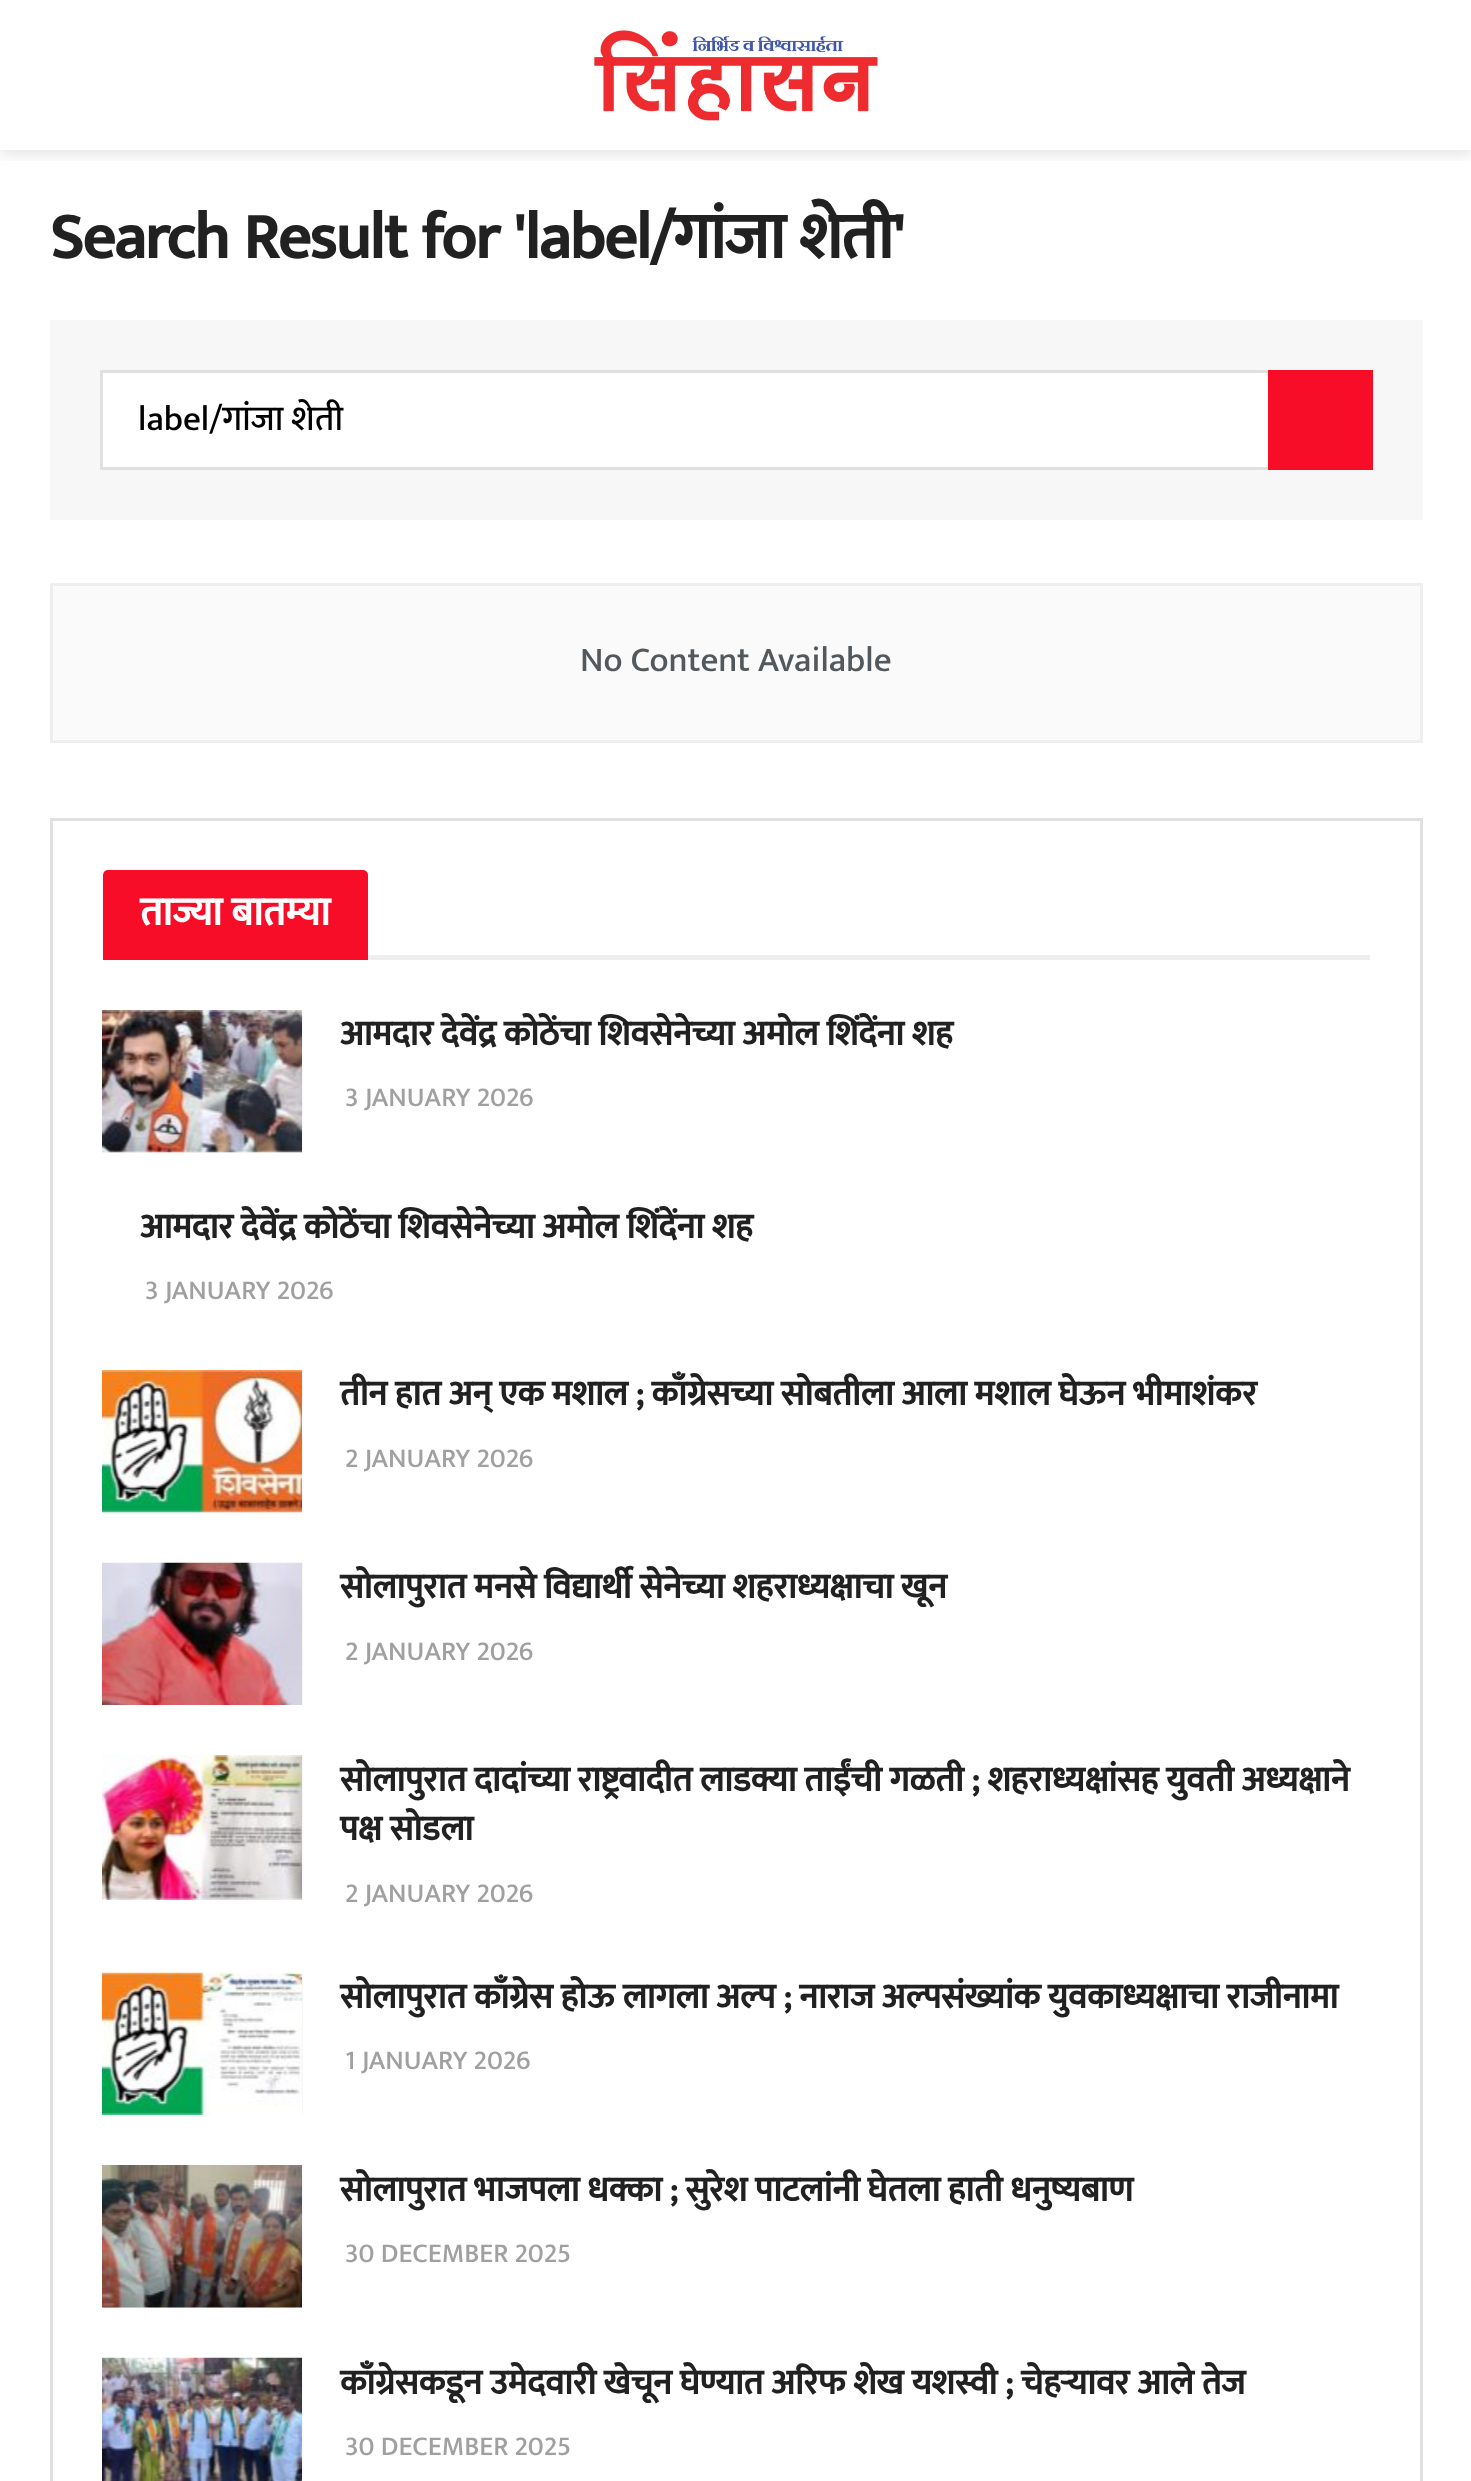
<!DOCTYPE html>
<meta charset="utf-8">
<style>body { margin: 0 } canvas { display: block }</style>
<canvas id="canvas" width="1471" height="2481"></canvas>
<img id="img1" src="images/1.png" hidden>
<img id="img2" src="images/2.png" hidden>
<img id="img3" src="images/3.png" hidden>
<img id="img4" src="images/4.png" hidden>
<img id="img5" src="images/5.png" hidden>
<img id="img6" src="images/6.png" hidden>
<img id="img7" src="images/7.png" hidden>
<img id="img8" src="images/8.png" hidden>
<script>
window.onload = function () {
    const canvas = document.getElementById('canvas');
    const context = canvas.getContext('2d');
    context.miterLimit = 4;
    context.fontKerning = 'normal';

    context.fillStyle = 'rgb(255, 255, 255)';
    context.fillRect(0, 0, 1471, 2481);
    context.save();
    context.beginPath();
    context.rect(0, 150, 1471, 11);
    context.clip();
    context.fillStyle = 'rgba(0, 0, 0, 0.1)';
    context.filter = 'blur(7.5px)';
    context.beginPath();
    context.rect(0, 5, 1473, 150);
    context.fill();
    context.filter = 'none';
    context.restore();
    context.drawImage(document.getElementById('img1'), 594, 30, 284, 91);
    context.fillStyle = 'rgb(247, 247, 247)';
    context.fillRect(50, 320, 1373, 200);
    context.fillStyle = 'rgb(255, 255, 255)';
    context.fillRect(103, 373, 1165, 94);
    context.strokeStyle = 'rgb(224, 224, 224)';
    context.lineWidth = 3;
    context.strokeRect(101.5, 371.5, 1270, 97);
    context.fillStyle = 'rgb(247, 13, 40)';
    context.fillRect(1268, 370, 105, 100);
    context.fillStyle = 'rgb(250, 250, 250)';
    context.beginPath();
    context.rect(51.5, 584.5, 1370, 157);
    context.fill();
    context.strokeStyle = 'rgb(238, 238, 238)';
    context.stroke();
    context.strokeStyle = 'rgb(224, 224, 224)';
    context.strokeRect(51.5, 819.5, 1370, 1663);
    context.fillStyle = 'rgb(238, 238, 238)';
    context.fillRect(368, 955, 1002, 5);
    context.fillStyle = 'rgb(247, 13, 40)';
    context.beginPath();
    context.roundRect(103, 870, 265, 90, [5, 5, 0, 0]);
    context.fill();
    context.fillStyle = 'rgb(247, 247, 247)';
    context.fillRect(103, 1010, 200, 143);
    context.drawImage(document.getElementById('img2'), 102, 1010, 200, 143);
    context.fillRect(103, 1370, 200, 143);
    context.drawImage(document.getElementById('img3'), 102, 1370, 200, 143);
    context.fillRect(302, 1563, 1, 142);
    context.drawImage(document.getElementById('img4'), 102, 1562, 200, 143);
    context.fillRect(302, 1755, 1, 145);
    context.drawImage(document.getElementById('img5'), 102, 1755, 200, 145);
    context.fillRect(302, 1973, 1, 142);
    context.drawImage(document.getElementById('img6'), 102, 1972, 200, 143);
    context.fillRect(103, 2165, 200, 143);
    context.drawImage(document.getElementById('img7'), 102, 2165, 200, 143);
    context.fillRect(302, 2358, 1, 123);
    context.drawImage(document.getElementById('img8'), 102, 2357, 200, 124);
    context.letterSpacing = '-1.3px';
    context.wordSpacing = '1.5px';
    context.font = 'bold 65px Mukta';
    context.fillStyle = 'rgb(33, 33, 33)';
    context.fillText('Search Result for \'label/गांजा शेती\'', 50, 258);
    context.letterSpacing = '0px';
    context.wordSpacing = '0px';
    context.font = '500 35px Mukta';
    context.fillStyle = 'rgb(0, 0, 0)';
    context.fillText('label/गांजा शेती', 138, 430);
    context.fillStyle = 'rgb(83, 88, 92)';
    context.fillText('No Content Available', 580, 671);
    context.font = 'bold 40px Mukta';
    context.fillStyle = 'rgb(255, 255, 255)';
    context.fillText('ताज्या बातम्या', 140, 925);
    context.font = 'bold 35px Mukta';
    context.fillStyle = 'rgb(33, 33, 33)';
    context.fillText('आमदार देवेंद्र कोठेंचा शिवसेनेच्या अमोल शिंदेंना शह', 340, 1045);
    context.font = '500 27.5px Mukta';
    context.fillStyle = 'rgb(160, 160, 160)';
    context.fillText('3 JANUARY 2026', 345, 1106);
    context.font = 'bold 35px Mukta';
    context.fillStyle = 'rgb(33, 33, 33)';
    context.fillText('आमदार देवेंद्र कोठेंचा शिवसेनेच्या अमोल शिंदेंना शह', 140, 1238);
    context.font = '500 27.5px Mukta';
    context.fillStyle = 'rgb(160, 160, 160)';
    context.fillText('3 JANUARY 2026', 145, 1299);
    context.font = 'bold 35px Mukta';
    context.fillStyle = 'rgb(33, 33, 33)';
    context.fillText('तीन हात अन् एक मशाल ; काँग्रेसच्या सोबतीला आला मशाल घेऊन भीमाशंकर', 340, 1405);
    context.font = '500 27.5px Mukta';
    context.fillStyle = 'rgb(160, 160, 160)';
    context.fillText('2 JANUARY 2026', 345, 1467);
    context.font = 'bold 35px Mukta';
    context.fillStyle = 'rgb(33, 33, 33)';
    context.fillText('सोलापुरात मनसे विद्यार्थी सेनेच्या शहराध्यक्षाचा खून', 340, 1598);
    context.font = '500 27.5px Mukta';
    context.fillStyle = 'rgb(160, 160, 160)';
    context.fillText('2 JANUARY 2026', 345, 1660);
    context.font = 'bold 35px Mukta';
    context.fillStyle = 'rgb(33, 33, 33)';
    context.fillText('सोलापुरात दादांच्या राष्ट्रवादीत लाडक्या ताईंची गळती ; शहराध्यक्षांसह युवती अध्यक्षाने', 340, 1791);
    context.fillText('पक्ष सोडला', 340, 1840);
    context.font = '500 27.5px Mukta';
    context.fillStyle = 'rgb(160, 160, 160)';
    context.fillText('2 JANUARY 2026', 345, 1902);
    context.font = 'bold 35px Mukta';
    context.fillStyle = 'rgb(33, 33, 33)';
    context.fillText('सोलापुरात काँग्रेस होऊ लागला अल्प ; नाराज अल्पसंख्यांक युवकाध्यक्षाचा राजीनामा', 340, 2008);
    context.font = '500 27.5px Mukta';
    context.fillStyle = 'rgb(160, 160, 160)';
    context.fillText('1 JANUARY 2026', 345, 2069);
    context.font = 'bold 35px Mukta';
    context.fillStyle = 'rgb(33, 33, 33)';
    context.fillText('सोलापुरात भाजपला धक्का ; सुरेश पाटलांनी घेतला हाती धनुष्यबाण', 340, 2201);
    context.font = '500 27.5px Mukta';
    context.fillStyle = 'rgb(160, 160, 160)';
    context.fillText('30 DECEMBER 2025', 345, 2262);
    context.font = 'bold 35px Mukta';
    context.fillStyle = 'rgb(33, 33, 33)';
    context.fillText('काँग्रेसकडून उमेदवारी खेचून घेण्यात अरिफ शेख यशस्वी ; चेहऱ्यावर आले तेज', 340, 2394);
    context.font = '500 27.5px Mukta';
    context.fillStyle = 'rgb(160, 160, 160)';
    context.fillText('30 DECEMBER 2025', 345, 2455);
};
</script>
